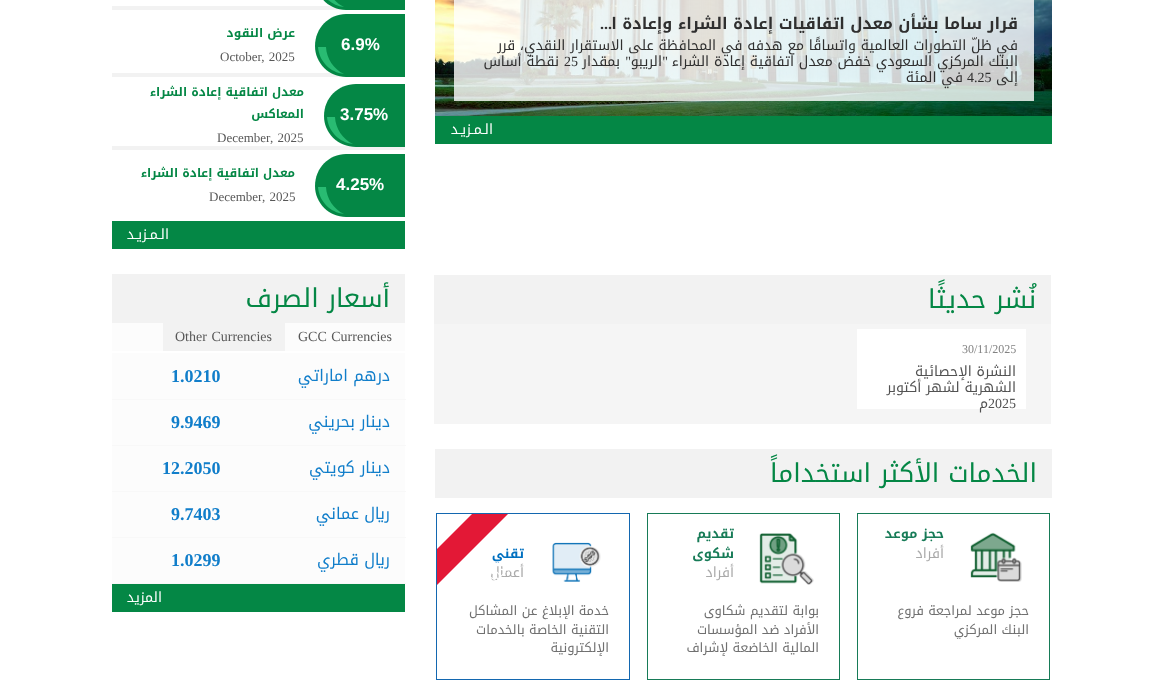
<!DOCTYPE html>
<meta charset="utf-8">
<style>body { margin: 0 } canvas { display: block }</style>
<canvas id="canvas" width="1164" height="690"></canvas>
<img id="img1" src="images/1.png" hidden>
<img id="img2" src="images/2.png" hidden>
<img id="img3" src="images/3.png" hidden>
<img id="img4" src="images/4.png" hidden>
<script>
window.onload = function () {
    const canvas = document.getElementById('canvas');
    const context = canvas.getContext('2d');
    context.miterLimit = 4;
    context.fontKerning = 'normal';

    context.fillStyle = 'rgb(255, 255, 255)';
    context.fillRect(0, 0, 1164, 690);
    context.drawImage(document.getElementById('img1'), 435, 0, 617, 116);
    context.fillStyle = 'rgba(255, 255, 255, 0.8)';
    context.fillRect(454, 0, 580, 101);
    context.fillStyle = 'rgb(4, 135, 69)';
    context.fillRect(435, 116, 617, 28);
    context.fillStyle = 'rgb(242, 242, 242)';
    context.fillRect(112, 6, 234, 4);
    context.fillStyle = 'rgb(4, 135, 69)';
    context.beginPath();
    context.moveTo(346, -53);
    context.lineTo(405, -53);
    context.lineTo(405, 10);
    context.lineTo(346, 10);
    context.bezierCurveTo(329, 10, 315, -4, 315, -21);
    context.bezierCurveTo(315, -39, 329, -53, 346, -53);
    context.closePath();
    context.fill();
    context.fillStyle = 'rgb(41, 187, 114)';
    context.beginPath();
    context.moveTo(344, 7);
    context.bezierCurveTo(330, 5.5, 319, -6, 318, -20);
    context.lineTo(326, -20);
    context.bezierCurveTo(326.5, -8.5, 333.5, 2, 344, 7);
    context.closePath();
    context.fill();
    context.fillStyle = 'rgb(242, 242, 242)';
    context.fillRect(112, 73, 234, 4);
    context.fillStyle = 'rgb(4, 135, 69)';
    context.beginPath();
    context.moveTo(346, 14);
    context.lineTo(405, 14);
    context.lineTo(405, 77);
    context.lineTo(346, 77);
    context.bezierCurveTo(329, 77, 315, 63, 315, 46);
    context.bezierCurveTo(315, 28, 329, 14, 346, 14);
    context.closePath();
    context.fill();
    context.fillStyle = 'rgb(242, 242, 242)';
    context.fillRect(112, 146, 293, 4);
    context.save();
    context.beginPath();
    context.rect(324, 84, 81, 63);
    context.clip();
    context.fillStyle = 'rgb(4, 135, 69)';
    context.beginPath();
    context.moveTo(356, 84);
    context.lineTo(414, 84);
    context.lineTo(414, 147);
    context.lineTo(356, 147);
    context.bezierCurveTo(338, 147, 324, 133, 324, 116);
    context.bezierCurveTo(324, 98, 338, 84, 356, 84);
    context.closePath();
    context.fill();
    context.restore();
    context.fillStyle = 'rgb(4, 135, 69)';
    context.beginPath();
    context.moveTo(346, 154);
    context.lineTo(405, 154);
    context.lineTo(405, 217);
    context.lineTo(346, 217);
    context.bezierCurveTo(329, 217, 315, 203, 315, 186);
    context.bezierCurveTo(315, 168, 329, 154, 346, 154);
    context.closePath();
    context.fill();
    context.fillRect(112, 221, 293, 28);
    context.fillStyle = 'rgb(242, 242, 242)';
    context.fillRect(434, 275, 617, 49);
    context.fillStyle = 'rgb(245, 245, 245)';
    context.fillRect(434, 324, 617, 100);
    context.fillStyle = 'rgb(255, 255, 255)';
    context.fillRect(857, 329, 169, 80);
    context.fillStyle = 'rgb(242, 242, 242)';
    context.fillRect(435, 449, 617, 49);
    context.strokeStyle = 'rgb(23, 123, 87)';
    context.strokeRect(857.5, 513.5, 192, 166);
    context.drawImage(document.getElementById('img2'), 970, 532, 52, 50);
    context.strokeRect(647.5, 513.5, 192, 166);
    context.drawImage(document.getElementById('img3'), 759, 533, 55, 52);
    context.strokeStyle = 'rgb(19, 103, 176)';
    context.strokeRect(436.5, 513.5, 193, 166);
    context.drawImage(document.getElementById('img4'), 552, 542, 49, 40);
    context.fillRect(112, 274, 293, 49);
    context.fillStyle = 'rgb(252, 252, 252)';
    context.fillRect(112, 323, 51, 28);
    context.fillRect(285, 323, 120, 28);
    context.fillStyle = 'rgb(242, 242, 242)';
    context.fillRect(163, 323, 122, 28);
    context.fillStyle = 'rgb(252, 252, 252)';
    context.fillRect(112, 353, 293, 46);
    context.fillStyle = 'rgb(248, 248, 248)';
    context.fillRect(112, 399, 294, 1);
    context.fillStyle = 'rgb(252, 252, 252)';
    context.fillRect(112, 400, 293, 45);
    context.fillStyle = 'rgb(248, 248, 248)';
    context.fillRect(112, 445, 294, 1);
    context.fillStyle = 'rgb(252, 252, 252)';
    context.fillRect(112, 446, 293, 45);
    context.fillStyle = 'rgb(248, 248, 248)';
    context.fillRect(112, 491, 294, 1);
    context.fillStyle = 'rgb(252, 252, 252)';
    context.fillRect(112, 492, 293, 45);
    context.fillStyle = 'rgb(248, 248, 248)';
    context.fillRect(112, 537, 294, 1);
    context.fillStyle = 'rgb(252, 252, 252)';
    context.fillRect(112, 538, 293, 45);
    context.fillStyle = 'rgb(248, 248, 248)';
    context.fillRect(112, 583, 294, 1);
    context.fillStyle = 'rgb(4, 135, 69)';
    context.fillRect(112, 584, 293, 28);
    context.direction = 'rtl';
    context.font = 'bold 16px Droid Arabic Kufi';
    context.fillStyle = 'rgb(47, 47, 47)';
    context.fillText('قرار ساما بشأن معدل اتفاقيات إعادة الشراء وإعادة ا', 1018, 29);
    context.font = 'bold 16px Liberation Serif';
    context.fillText('...', 612, 29);
    context.font = '14px Droid Arabic Kufi';
    context.fillText('في ظلّ التطورات العالمية واتساقًا مع هدفه في المحافظة على الاستقرار النقدي، قرر', 1018, 50);
    context.fillText('البنك المركزي السعودي خفض معدل اتفاقية إعادة الشراء', 1018, 66);
    context.font = '14px Liberation Serif';
    context.fillText('"', 668, 66);
    context.font = '14px Droid Arabic Kufi';
    context.fillText('الريبو', 662, 66);
    context.font = '14px Liberation Serif';
    context.fillText('"', 631, 66);
    context.font = '14px Droid Arabic Kufi';
    context.fillText('بمقدار', 620, 66);
    context.direction = 'ltr';
    context.font = '14px Liberation Serif';
    context.fillText('25', 564, 66);
    context.direction = 'rtl';
    context.font = '14px Droid Arabic Kufi';
    context.fillText('نقطة أساس', 559, 66);
    context.fillText('إلى', 1018, 82);
    context.direction = 'ltr';
    context.font = '14px Liberation Serif';
    context.fillText('4.25', 967, 82);
    context.direction = 'rtl';
    context.font = '14px Droid Arabic Kufi';
    context.fillText('في المئة', 963, 82);
    context.fillStyle = 'rgb(255, 255, 255)';
    context.fillText('الـمـزيـد', 493, 134);
    context.direction = 'ltr';
    context.font = 'bold 17px Liberation Sans';
    context.fillText('6.9%', 341, 50);
    context.fillStyle = 'rgb(41, 187, 114)';
    context.beginPath();
    context.moveTo(344, 74);
    context.bezierCurveTo(330, 72.5, 319, 61, 318, 47);
    context.lineTo(326, 47);
    context.bezierCurveTo(326.5, 58.5, 333.5, 69, 344, 74);
    context.closePath();
    context.fill();
    context.direction = 'rtl';
    context.font = 'bold 12px Droid Arabic Kufi';
    context.fillStyle = 'rgb(4, 135, 69)';
    context.fillText('عرض النقود', 295, 37);
    context.wordSpacing = '1px';
    context.direction = 'ltr';
    context.font = '13px Liberation Serif';
    context.fillStyle = 'rgb(88, 88, 88)';
    context.fillText('October, 2025', 220, 61);
    context.wordSpacing = '0px';
    context.font = 'bold 17px Liberation Sans';
    context.fillStyle = 'rgb(255, 255, 255)';
    context.fillText('3.75%', 340, 120);
    context.fillStyle = 'rgb(41, 187, 114)';
    context.beginPath();
    context.moveTo(353, 144);
    context.bezierCurveTo(339, 142.5, 328, 131, 327, 117);
    context.lineTo(335, 117);
    context.bezierCurveTo(335.5, 128.5, 342.5, 139, 353, 144);
    context.closePath();
    context.fill();
    context.direction = 'rtl';
    context.font = 'bold 12px Droid Arabic Kufi';
    context.fillStyle = 'rgb(4, 135, 69)';
    context.fillText('معدل اتفاقية إعادة الشراء', 304, 96);
    context.fillText('المعاكس', 304, 118);
    context.wordSpacing = '1px';
    context.direction = 'ltr';
    context.font = '13px Liberation Serif';
    context.fillStyle = 'rgb(88, 88, 88)';
    context.fillText('December, 2025', 217, 142);
    context.wordSpacing = '0px';
    context.font = 'bold 17px Liberation Sans';
    context.fillStyle = 'rgb(255, 255, 255)';
    context.fillText('4.25%', 336, 190);
    context.fillStyle = 'rgb(41, 187, 114)';
    context.beginPath();
    context.moveTo(344, 214);
    context.bezierCurveTo(330, 212.5, 319, 201, 318, 187);
    context.lineTo(326, 187);
    context.bezierCurveTo(326.5, 198.5, 333.5, 209, 344, 214);
    context.closePath();
    context.fill();
    context.direction = 'rtl';
    context.font = 'bold 12px Droid Arabic Kufi';
    context.fillStyle = 'rgb(4, 135, 69)';
    context.fillText('معدل اتفاقية إعادة الشراء', 295, 177);
    context.wordSpacing = '1px';
    context.direction = 'ltr';
    context.font = '13px Liberation Serif';
    context.fillStyle = 'rgb(88, 88, 88)';
    context.fillText('December, 2025', 209, 201);
    context.wordSpacing = '0px';
    context.direction = 'rtl';
    context.font = '14px Droid Arabic Kufi';
    context.fillStyle = 'rgb(255, 255, 255)';
    context.fillText('الـمـزيـد', 169, 239);
    context.font = '26px Droid Arabic Kufi';
    context.fillStyle = 'rgb(4, 135, 69)';
    context.fillText('نُشر حديثًا', 1036, 308);
    context.direction = 'ltr';
    context.font = '12px Liberation Serif';
    context.fillStyle = 'rgb(130, 130, 130)';
    context.fillText('30/11/2025', 962, 353);
    context.direction = 'rtl';
    context.font = '14px Droid Arabic Kufi';
    context.fillStyle = 'rgb(82, 82, 82)';
    context.fillText('النشرة الإحصائية', 1016, 376);
    context.fillText('الشهرية لشهر أكتوبر', 1016, 392);
    context.direction = 'ltr';
    context.font = '14px Liberation Serif';
    context.fillText('2025', 988, 408);
    context.direction = 'rtl';
    context.font = '14px Droid Arabic Kufi';
    context.fillText('م', 988, 408);
    context.font = '26px Droid Arabic Kufi';
    context.fillStyle = 'rgb(4, 135, 69)';
    context.fillText('الخدمات الأكثر استخداماً', 1037, 482);
    context.font = 'bold 13px Droid Arabic Kufi';
    context.fillStyle = 'rgb(23, 123, 87)';
    context.fillText('حجز موعد', 944, 538);
    context.font = '14px Droid Arabic Kufi';
    context.fillStyle = 'rgb(170, 170, 170)';
    context.fillText('أفراد', 944, 558);
    context.font = '13px Droid Arabic Kufi';
    context.fillStyle = 'rgb(112, 112, 112)';
    context.fillText('حجز موعد لمراجعة فروع', 1029, 615);
    context.save();
    context.beginPath();
    context.rect(878, 602, 151, 37);
    context.clip();
    context.fillText('البنك المركزي', 1029, 634);
    context.restore();
    context.font = 'bold 13px Droid Arabic Kufi';
    context.fillStyle = 'rgb(23, 123, 87)';
    context.fillText('تقديم', 734, 538);
    context.fillText('شكوى', 734, 558);
    context.font = '14px Droid Arabic Kufi';
    context.fillStyle = 'rgb(170, 170, 170)';
    context.fillText('أفراد', 734, 577);
    context.font = '13px Droid Arabic Kufi';
    context.fillStyle = 'rgb(112, 112, 112)';
    context.fillText('بوابة لتقديم شكاوى', 819, 615);
    context.fillText('الأفراد ضد المؤسسات', 819, 634);
    context.fillText('المالية الخاضعة لإشراف', 819, 652);
    context.save();
    context.beginPath();
    context.rect(457, 524, 67, 39);
    context.clip();
    context.font = 'bold 13px Droid Arabic Kufi';
    context.fillStyle = 'rgb(0, 112, 192)';
    context.fillText('تقني', 524, 558);
    context.restore();
    context.font = '14px Droid Arabic Kufi';
    context.fillStyle = 'rgb(170, 170, 170)';
    context.fillText('أعمال', 524, 577);
    context.save();
    context.beginPath();
    context.rect(437, 514, 192, 165);
    context.clip();
    context.fillStyle = 'rgb(227, 24, 54)';
    context.beginPath();
    context.moveTo(410, 576);
    context.lineTo(563, 423);
    context.lineTo(581, 441);
    context.lineTo(428, 594);
    context.closePath();
    context.fill();
    context.font = '12px Droid Arabic Kufi';
    context.fillStyle = 'rgb(255, 255, 255)';
    context.save();
    context.translate(509, 569);
    context.rotate(-45 * Math.PI / 180);
    context.fillText('إطلاق تجريبي', 0, 0);
    context.restore();
    context.restore();
    context.font = '13px Droid Arabic Kufi';
    context.fillStyle = 'rgb(112, 112, 112)';
    context.fillText('خدمة الإبلاغ عن المشاكل', 609, 615);
    context.fillText('التقنية الخاصة بالخدمات', 609, 634);
    context.fillText('الإلكترونية', 609, 652);
    context.font = '26px Droid Arabic Kufi';
    context.fillStyle = 'rgb(4, 135, 69)';
    context.fillText('أسعار الصرف', 390, 307);
    context.wordSpacing = '1px';
    context.direction = 'ltr';
    context.font = '14px Liberation Serif';
    context.fillStyle = 'rgb(88, 88, 88)';
    context.fillText('GCC Currencies', 298, 341);
    context.fillText('Other Currencies', 175, 341);
    context.wordSpacing = '0px';
    context.direction = 'rtl';
    context.font = '16px Droid Arabic Kufi';
    context.fillStyle = 'rgb(17, 126, 202)';
    context.fillText('درهم اماراتي', 390, 381);
    context.direction = 'ltr';
    context.font = 'bold 18px Liberation Serif';
    context.fillText('1.0210', 171, 382);
    context.direction = 'rtl';
    context.font = '16px Droid Arabic Kufi';
    context.fillText('دينار بحريني', 390, 427);
    context.direction = 'ltr';
    context.font = 'bold 18px Liberation Serif';
    context.fillText('9.9469', 171, 428);
    context.direction = 'rtl';
    context.font = '16px Droid Arabic Kufi';
    context.fillText('دينار كويتي', 390, 473);
    context.direction = 'ltr';
    context.font = 'bold 18px Liberation Serif';
    context.fillText('12.2050', 162, 474);
    context.direction = 'rtl';
    context.font = '16px Droid Arabic Kufi';
    context.fillText('ريال عماني', 390, 519);
    context.direction = 'ltr';
    context.font = 'bold 18px Liberation Serif';
    context.fillText('9.7403', 171, 520);
    context.direction = 'rtl';
    context.font = '16px Droid Arabic Kufi';
    context.fillText('ريال قطري', 390, 565);
    context.direction = 'ltr';
    context.font = 'bold 18px Liberation Serif';
    context.fillText('1.0299', 171, 566);
    context.direction = 'rtl';
    context.font = '14px Droid Arabic Kufi';
    context.fillStyle = 'rgb(255, 255, 255)';
    context.fillText('المزيد', 162, 602);
};
</script>
